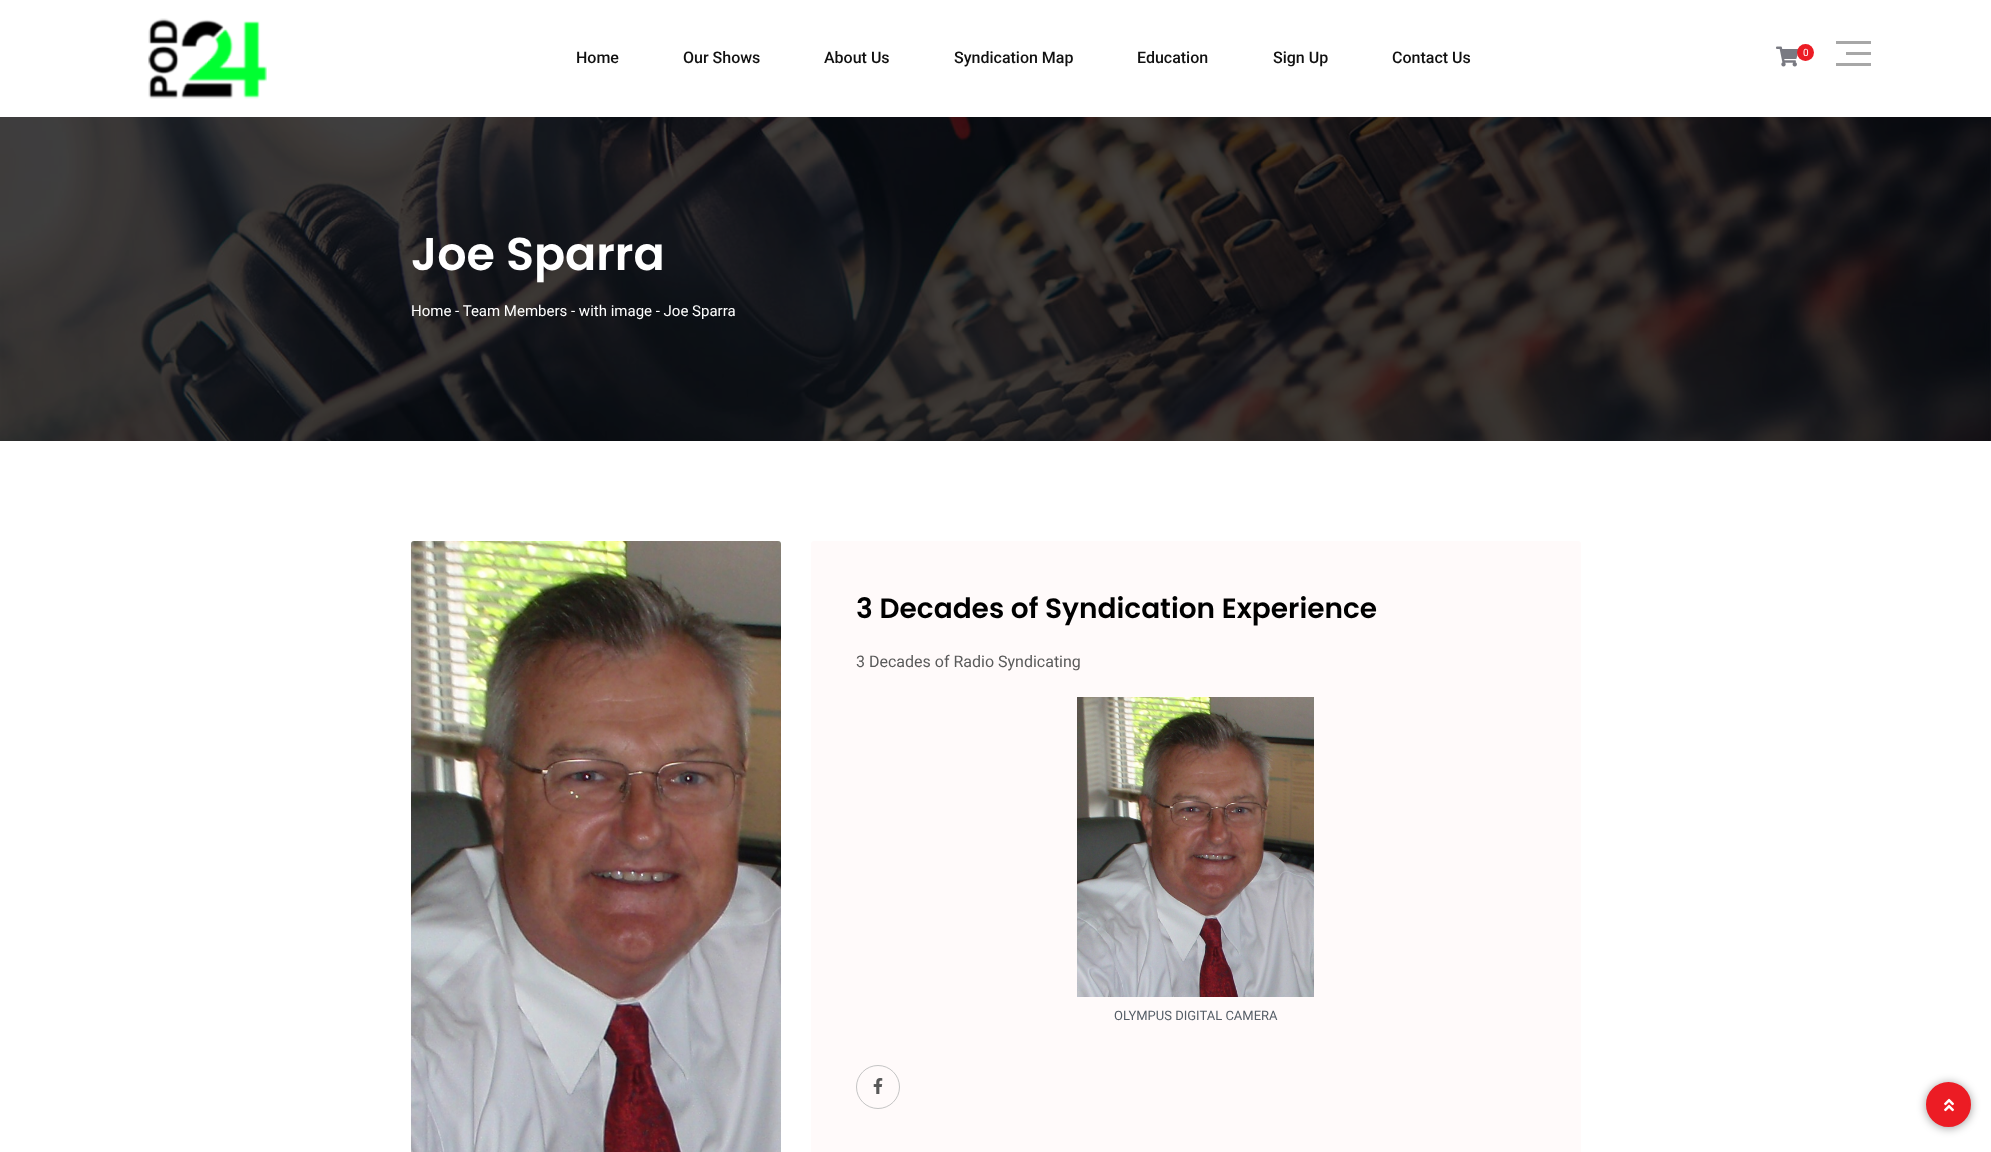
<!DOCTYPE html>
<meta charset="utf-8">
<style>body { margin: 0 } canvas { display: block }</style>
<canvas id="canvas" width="1991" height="1152"></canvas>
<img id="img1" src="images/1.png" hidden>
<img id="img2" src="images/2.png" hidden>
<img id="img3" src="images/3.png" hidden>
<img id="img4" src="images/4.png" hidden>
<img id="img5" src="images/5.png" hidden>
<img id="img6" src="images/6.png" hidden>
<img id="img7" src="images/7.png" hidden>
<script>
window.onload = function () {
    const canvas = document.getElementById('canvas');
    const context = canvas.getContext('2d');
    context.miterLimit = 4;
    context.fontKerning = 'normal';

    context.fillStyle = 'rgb(255, 255, 255)';
    context.fillRect(0, 0, 1991, 1152);
    context.drawImage(document.getElementById('img1'), 148, 18, 119, 81);
    context.drawImage(document.getElementById('img2'), 1776, 46, 22, 21);
    context.fillStyle = 'rgb(236, 28, 36)';
    context.beginPath();
    context.arc(1805.5, 52.5, 8.5, 0, 2 * Math.PI);
    context.fill();
    context.fillStyle = 'rgb(167, 167, 167)';
    context.fillRect(1836, 41, 35, 3);
    context.fillRect(1846, 52, 25, 3);
    context.fillRect(1836, 63, 35, 3);
    context.drawImage(document.getElementById('img3'), 0, 117, 1991, 324);
    context.drawImage(document.getElementById('img4'), 411, 541, 370, 611);
    context.fillStyle = 'rgb(255, 250, 250)';
    context.beginPath();
    context.roundRect(811, 541, 770, 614, 3);
    context.fill();
    context.drawImage(document.getElementById('img5'), 1077, 697, 237, 300);
    context.beginPath();
    context.arc(878, 1087, 21.5, 0, 2 * Math.PI);
    context.strokeStyle = 'rgb(196, 196, 196)';
    context.stroke();
    context.drawImage(document.getElementById('img6'), 873, 1078, 10, 16);
    context.fillStyle = 'rgba(0, 0, 0, 0.4)';
    context.filter = 'blur(5px)';
    context.beginPath();
    context.roundRect(1926, 1083, 45, 45, 22.5);
    context.fill();
    context.filter = 'none';
    context.fillStyle = 'rgb(236, 28, 36)';
    context.beginPath();
    context.arc(1948.5, 1104.5, 21.5, 0, 2 * Math.PI);
    context.fill();
    context.strokeStyle = 'rgb(236, 28, 36)';
    context.lineWidth = 2;
    context.stroke();
    context.drawImage(document.getElementById('img7'), 1944, 1098, 10, 14);
    context.font = '500 16px Roboto';
    context.fillStyle = 'rgb(17, 17, 17)';
    context.fillText('Home', 576, 63);
    context.fillText('Our Shows', 683, 63);
    context.fillText('About Us', 824, 63);
    context.fillText('Syndication Map', 954, 63);
    context.fillText('Education', 1137, 63);
    context.fillText('Sign Up', 1273, 63);
    context.fillText('Contact Us', 1392, 63);
    context.font = '10px Roboto';
    context.fillStyle = 'rgb(255, 255, 255)';
    context.fillText('0', 1803, 56);
    context.font = '600 46px Poppins';
    context.fillText('Joe Sparra', 411, 270);
    context.font = '15px Roboto';
    context.fillText('Home - Team Members - with image - Joe Sparra', 411, 316);
    context.font = '600 28px Poppins';
    context.fillStyle = 'rgb(0, 0, 0)';
    context.fillText('3 Decades of Syndication Experience', 856, 618);
    context.font = '16px Roboto';
    context.fillStyle = 'rgb(90, 90, 90)';
    context.fillText('3 Decades of Radio Syndicating', 856, 667);
    context.font = '13px Roboto';
    context.fillStyle = 'rgb(85, 93, 102)';
    context.fillText('OLYMPUS DIGITAL CAMERA', 1114, 1020);
};
</script>
